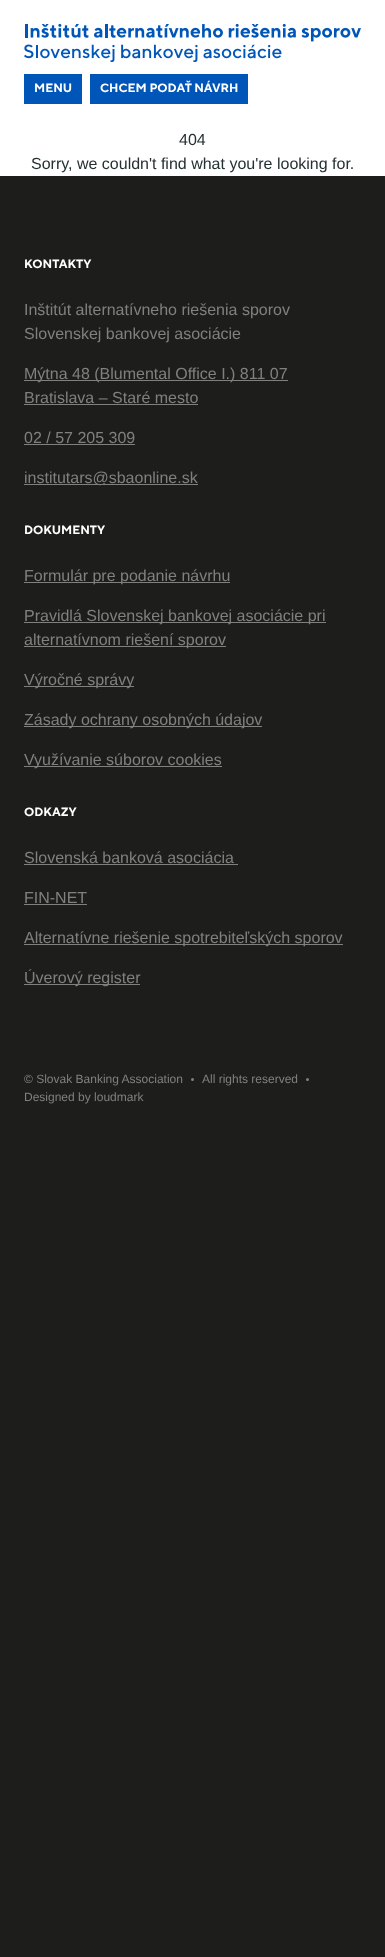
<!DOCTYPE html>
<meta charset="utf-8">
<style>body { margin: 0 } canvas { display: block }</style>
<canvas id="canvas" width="385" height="1957"></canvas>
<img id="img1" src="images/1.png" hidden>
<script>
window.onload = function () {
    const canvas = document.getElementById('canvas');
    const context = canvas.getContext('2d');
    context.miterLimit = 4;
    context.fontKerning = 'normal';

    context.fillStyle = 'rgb(29, 29, 27)';
    context.fillRect(0, 0, 385, 1957);
    context.fillStyle = 'rgb(255, 255, 255)';
    context.fillRect(0, 0, 385, 176);
    context.drawImage(document.getElementById('img1'), 24, 24, 337, 38);
    context.fillStyle = 'rgb(0, 85, 184)';
    context.fillRect(24, 74, 58, 30);
    context.fillRect(90, 74, 158, 30);
    context.fillStyle = 'rgb(128, 128, 128)';
    context.fillRect(24, 380, 264, 1);
    context.fillRect(24, 404, 174, 1);
    context.fillRect(24, 444, 111, 1);
    context.fillRect(24, 484, 174, 1);
    context.fillRect(24, 582, 206, 1);
    context.fillRect(24, 622, 302, 1);
    context.fillRect(24, 646, 202, 1);
    context.fillRect(24, 686, 110, 1);
    context.fillRect(24, 726, 238, 1);
    context.fillRect(24, 766, 198, 1);
    context.fillRect(24, 864, 214, 1);
    context.fillRect(24, 904, 63, 1);
    context.fillRect(24, 944, 319, 1);
    context.fillRect(24, 984, 116, 1);
    context.beginPath();
    context.arc(192.5, 1079.5, 1.5, 0, 2 * Math.PI);
    context.fill();
    context.beginPath();
    context.arc(307.5, 1079.5, 1.5, 0, 2 * Math.PI);
    context.fill();
    context.font = 'bold 12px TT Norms';
    context.fillStyle = 'rgb(255, 255, 255)';
    context.fillText('MENU', 34, 92);
    context.fillText('CHCEM PODAŤ NÁVRH', 100, 92);
    context.font = '16px Liberation Sans';
    context.fillStyle = 'rgb(37, 48, 49)';
    context.fillText('404', 179, 145);
    context.fillText('Sorry, we couldn\'t find what you\'re looking for.', 31, 169);
    context.font = 'bold 12px TT Norms';
    context.fillStyle = 'rgb(255, 255, 255)';
    context.fillText('KONTAKTY', 24, 268);
    context.font = '16px Liberation Sans';
    context.fillStyle = 'rgb(128, 128, 128)';
    context.fillText('Inštitút alternatívneho riešenia sporov', 24, 315);
    context.fillText('Slovenskej bankovej asociácie', 24, 339);
    context.fillText('Mýtna 48 (Blumental Office I.) 811 07', 24, 379);
    context.fillText('Bratislava – Staré mesto', 24, 403);
    context.fillText('02 / 57 205 309', 24, 443);
    context.fillText('institutars@sbaonline.sk', 24, 483);
    context.font = 'bold 12px TT Norms';
    context.fillStyle = 'rgb(255, 255, 255)';
    context.fillText('DOKUMENTY', 24, 534);
    context.font = '16px Liberation Sans';
    context.fillStyle = 'rgb(128, 128, 128)';
    context.fillText('Formulár pre podanie návrhu', 24, 581);
    context.fillText('Pravidlá Slovenskej bankovej asociácie pri', 24, 621);
    context.fillText('alternatívnom riešení sporov', 24, 645);
    context.fillText('Výročné správy', 24, 685);
    context.fillText('Zásady ochrany osobných údajov', 24, 725);
    context.fillText('Využívanie súborov cookies', 24, 765);
    context.font = 'bold 12px TT Norms';
    context.fillStyle = 'rgb(255, 255, 255)';
    context.fillText('ODKAZY', 24, 816);
    context.font = '16px Liberation Sans';
    context.fillStyle = 'rgb(128, 128, 128)';
    context.fillText('Slovenská banková asociácia', 24, 863);
    context.fillText('FIN-NET', 24, 903);
    context.fillText('Alternatívne riešenie spotrebiteľských sporov', 24, 943);
    context.fillText('Úverový register', 24, 983);
    context.font = '12px Liberation Sans';
    context.fillText('© Slovak Banking Association', 24, 1083);
    context.fillText('All rights reserved', 202, 1083);
    context.fillText('Designed by loudmark', 24, 1101);
};
</script>
